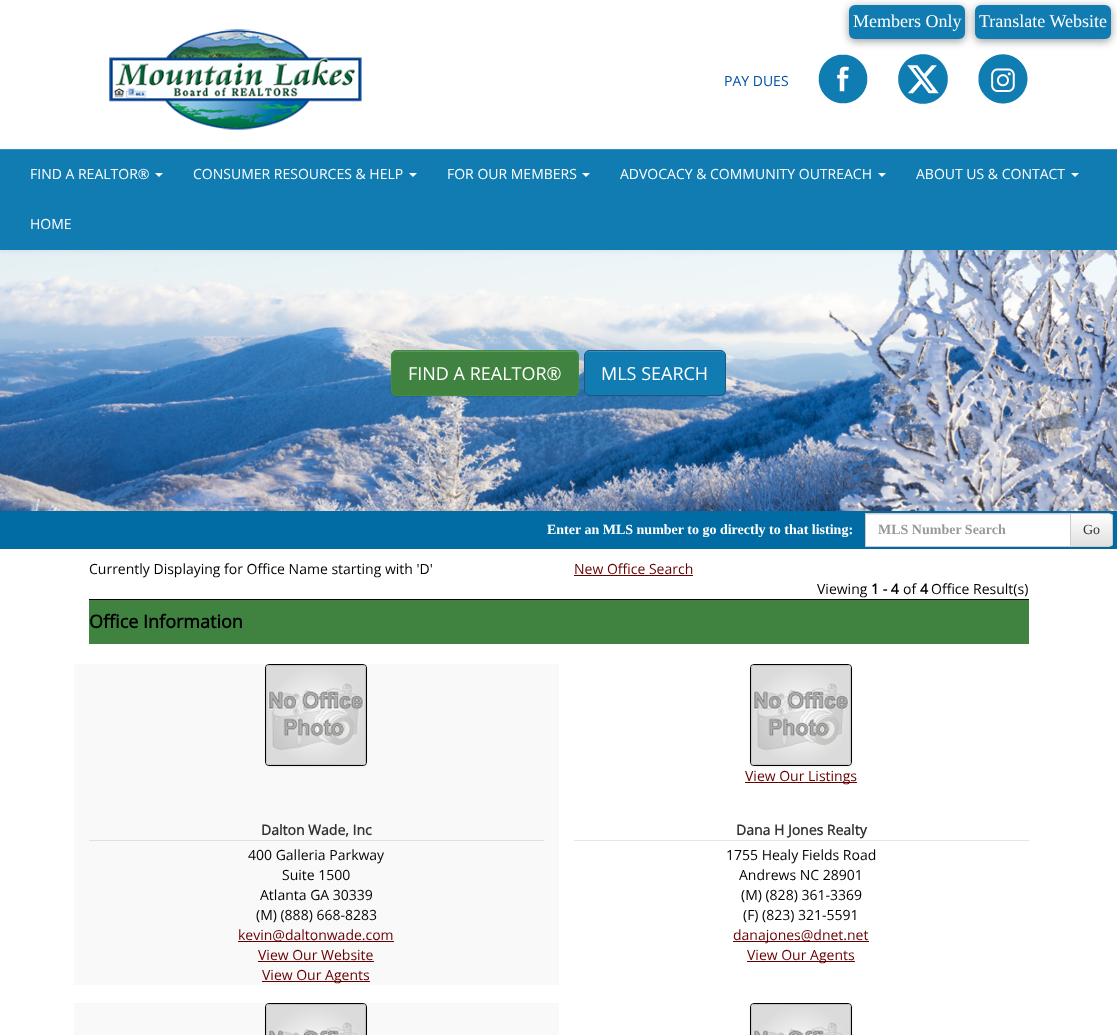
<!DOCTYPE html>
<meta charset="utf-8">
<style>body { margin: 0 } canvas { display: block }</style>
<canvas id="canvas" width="1117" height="1035"></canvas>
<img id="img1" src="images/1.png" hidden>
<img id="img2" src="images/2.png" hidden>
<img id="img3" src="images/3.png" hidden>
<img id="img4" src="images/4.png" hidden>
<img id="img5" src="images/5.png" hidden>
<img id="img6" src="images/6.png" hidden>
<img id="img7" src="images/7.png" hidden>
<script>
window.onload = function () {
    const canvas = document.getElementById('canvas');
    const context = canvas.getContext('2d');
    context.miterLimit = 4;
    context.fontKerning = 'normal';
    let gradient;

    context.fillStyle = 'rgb(255, 255, 255)';
    context.fillRect(0, 0, 1117, 1035);
    context.fillStyle = 'rgba(0, 0, 0, 0.4)';
    context.filter = 'blur(4px)';
    context.beginPath();
    context.roundRect(849, 7, 116, 34, 6);
    context.fill();
    context.filter = 'none';
    context.fillStyle = 'rgb(16, 124, 178)';
    context.beginPath();
    context.roundRect(849, 5, 116, 34, 6);
    context.fill();
    context.fillStyle = 'rgba(0, 0, 0, 0.4)';
    context.filter = 'blur(4px)';
    context.beginPath();
    context.roundRect(975, 7, 136, 34, 6);
    context.fill();
    context.filter = 'none';
    context.fillStyle = 'rgb(16, 124, 178)';
    context.beginPath();
    context.roundRect(975, 5, 136, 34, 6);
    context.fill();
    context.drawImage(document.getElementById('img1'), 109, 29, 253, 101);
    context.drawImage(document.getElementById('img2'), 818, 54, 50, 50);
    context.drawImage(document.getElementById('img3'), 898, 54, 50, 50);
    context.drawImage(document.getElementById('img4'), 978, 54, 50, 50);
    context.drawImage(document.getElementById('img5'), 0, 250, 1117, 261);
    context.fillStyle = 'rgba(0, 0, 0, 0.07)';
    context.filter = 'blur(2.5px)';
    context.beginPath();
    context.rect(0, 150, 1117, 101);
    context.fill();
    context.filter = 'none';
    context.fillStyle = 'rgb(16, 124, 178)';
    context.fillRect(0, 150, 1117, 100);
    context.fillStyle = 'rgb(52, 144, 190)';
    context.fillRect(0, 149, 1117, 1);
    context.fillStyle = 'rgb(255, 255, 255)';
    context.beginPath();
    context.moveTo(155, 173);
    context.lineTo(163, 173);
    context.lineTo(159, 177);
    context.closePath();
    context.fill();
    context.beginPath();
    context.moveTo(409, 173);
    context.lineTo(417, 173);
    context.lineTo(413, 177);
    context.closePath();
    context.fill();
    context.beginPath();
    context.moveTo(582, 173);
    context.lineTo(590, 173);
    context.lineTo(586, 177);
    context.closePath();
    context.fill();
    context.beginPath();
    context.moveTo(878, 173);
    context.lineTo(886, 173);
    context.lineTo(882, 177);
    context.closePath();
    context.fill();
    context.beginPath();
    context.moveTo(1071, 173);
    context.lineTo(1079, 173);
    context.lineTo(1075, 177);
    context.closePath();
    context.fill();
    context.fillStyle = 'rgba(0, 0, 0, 0.07)';
    context.filter = 'blur(0.5px)';
    context.beginPath();
    context.roundRect(391, 351, 188, 46, 6);
    context.fill();
    context.filter = 'none';
    context.fillStyle = 'rgb(64, 131, 65)';
    context.beginPath();
    context.roundRect(391, 350, 188, 46, 6);
    context.fill();
    context.fillStyle = 'rgb(93, 150, 94)';
    context.beginPath();
    context.moveTo(397, 352);
    context.lineTo(573, 352);
    context.bezierCurveTo(576, 352, 578, 354, 578, 357);
    context.bezierCurveTo(578, 354, 577, 352, 574, 351);
    context.lineTo(396, 351);
    context.bezierCurveTo(393, 352, 392, 354, 392, 357);
    context.bezierCurveTo(392, 354, 394, 352, 397, 352);
    context.closePath();
    context.fill();
    context.beginPath();
    context.roundRect(391.5, 350.5, 187, 45, 5.5);
    context.strokeStyle = 'rgb(62, 143, 62)';
    context.stroke();
    context.fillStyle = 'rgba(0, 0, 0, 0.07)';
    context.filter = 'blur(0.5px)';
    context.beginPath();
    context.roundRect(584, 351, 142, 46, 6);
    context.fill();
    context.filter = 'none';
    context.fillStyle = 'rgb(16, 124, 178)';
    context.beginPath();
    context.roundRect(584, 350, 142, 46, 6);
    context.fill();
    context.fillStyle = 'rgb(52, 144, 190)';
    context.beginPath();
    context.moveTo(590, 352);
    context.lineTo(720, 352);
    context.bezierCurveTo(723, 352, 725, 354, 725, 357);
    context.lineTo(725, 356);
    context.bezierCurveTo(725, 353, 723, 351, 720, 351);
    context.lineTo(590, 351);
    context.bezierCurveTo(587, 351, 585, 353, 585, 356);
    context.lineTo(585, 357);
    context.bezierCurveTo(585, 354, 587, 352, 590, 352);
    context.closePath();
    context.fill();
    context.beginPath();
    context.roundRect(584.5, 350.5, 141, 45, 5.5);
    context.strokeStyle = 'rgb(36, 85, 128)';
    context.stroke();
    context.fillStyle = 'rgb(0, 108, 163)';
    context.fillRect(0, 511, 1117, 38);
    context.fillStyle = 'rgb(255, 255, 255)';
    context.fillRect(866, 515, 204, 31);
    context.fillStyle = 'rgb(236, 236, 236)';
    context.fillRect(866, 514, 204, 1);
    context.strokeStyle = 'rgb(204, 204, 204)';
    context.strokeRect(865.5, 513.5, 205, 33);
    context.fillStyle = 'rgba(0, 0, 0, 0.07)';
    context.filter = 'blur(0.5px)';
    context.beginPath();
    context.roundRect(1070, 514, 43, 34, 4);
    context.fill();
    context.filter = 'none';
    context.save();
    context.beginPath();
    context.roundRect(1070, 513, 43, 34, [0, 4, 4, 0]);
    context.clip();
    gradient = context.createLinearGradient(1092, 514, 1092, 546);
    gradient.addColorStop(0, 'rgb(255, 255, 255)');
    gradient.addColorStop(1, 'rgb(224, 224, 224)');
    context.fillStyle = gradient;
    context.fillRect(1071, 514, 42, 32);
    context.restore();
    context.beginPath();
    context.roundRect(1070.5, 513.5, 42, 33, [0, 3.5, 3.5, 0]);
    context.stroke();
    context.fillStyle = 'rgb(102, 0, 0)';
    context.fillRect(574, 575, 119, 1);
    context.fillStyle = 'rgb(64, 131, 65)';
    context.fillRect(89, 600, 940, 44);
    context.fillStyle = 'rgb(0, 0, 0)';
    context.fillRect(89, 599, 940, 1);
    context.fillStyle = 'rgb(249, 249, 249)';
    context.fillRect(74, 664, 485, 321);
    context.fillStyle = 'rgba(0, 0, 0, 0.07)';
    context.filter = 'blur(1px)';
    context.beginPath();
    context.roundRect(265, 665, 102, 102, 4);
    context.fill();
    context.filter = 'none';
    context.beginPath();
    context.roundRect(265.5, 664.5, 101, 101, 3.5);
    context.strokeStyle = 'rgb(0, 0, 0)';
    context.stroke();
    context.drawImage(document.getElementById('img6'), 266, 665, 100, 100);
    context.fillStyle = 'rgb(224, 224, 224)';
    context.fillRect(89, 840, 455, 1);
    context.fillStyle = 'rgb(102, 0, 0)';
    context.fillRect(238, 941, 156, 1);
    context.fillRect(258, 961, 116, 1);
    context.fillRect(262, 981, 108, 1);
    context.fillStyle = 'rgba(0, 0, 0, 0.07)';
    context.filter = 'blur(1px)';
    context.beginPath();
    context.roundRect(750, 665, 102, 102, 4);
    context.fill();
    context.filter = 'none';
    context.beginPath();
    context.roundRect(750.5, 664.5, 101, 101, 3.5);
    context.stroke();
    context.drawImage(document.getElementById('img6'), 751, 665, 100, 100);
    context.fillStyle = 'rgb(102, 0, 0)';
    context.fillRect(745, 782, 112, 1);
    context.fillStyle = 'rgb(230, 230, 230)';
    context.fillRect(574, 840, 455, 1);
    context.fillStyle = 'rgb(102, 0, 0)';
    context.fillRect(733, 941, 136, 1);
    context.fillRect(747, 961, 108, 1);
    context.fillStyle = 'rgb(249, 249, 249)';
    context.fillRect(74, 1003, 485, 32);
    context.fillStyle = 'rgba(0, 0, 0, 0.07)';
    context.filter = 'blur(1px)';
    context.beginPath();
    context.roundRect(265, 1004, 102, 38, 4);
    context.fill();
    context.filter = 'none';
    context.beginPath();
    context.roundRect(265.5, 1003.5, 101, 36, 3.5);
    context.stroke();
    context.drawImage(document.getElementById('img7'), 266, 1004, 100, 31);
    context.filter = 'blur(1px)';
    context.beginPath();
    context.roundRect(750, 1004, 102, 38, 4);
    context.fill();
    context.filter = 'none';
    context.beginPath();
    context.roundRect(750.5, 1003.5, 101, 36, 3.5);
    context.stroke();
    context.drawImage(document.getElementById('img7'), 751, 1004, 100, 31);
    context.font = '18px Liberation Serif';
    context.fillStyle = 'rgb(255, 255, 255)';
    context.fillText('Members Only', 853, 27);
    context.fillText('Translate Website', 979, 27);
    context.font = '14px Open Sans';
    context.fillStyle = 'rgb(0, 81, 165)';
    context.fillText('PAY DUES', 724, 86);
    context.fillStyle = 'rgb(255, 255, 255)';
    context.fillText('FIND A REALTOR®', 30, 179);
    context.fillText('CONSUMER RESOURCES & HELP', 193, 179);
    context.fillText('FOR OUR MEMBERS', 447, 179);
    context.fillText('ADVOCACY & COMMUNITY OUTREACH', 620, 179);
    context.fillText('ABOUT US & CONTACT', 916, 179);
    context.fillText('HOME', 30, 229);
    context.font = '18px Open Sans';
    context.fillText('FIND A REALTOR®', 408, 380);
    context.fillText('MLS SEARCH', 601, 380);
    context.font = 'bold 14px Liberation Serif';
    context.fillText('Enter an MLS number to go directly to that listing:', 547, 534);
    context.fillStyle = 'rgb(153, 153, 153)';
    context.fillText('MLS Number Search', 878, 534);
    context.font = '14px Liberation Serif';
    context.fillStyle = 'rgb(51, 51, 51)';
    context.fillText('Go', 1083, 534);
    context.font = '14px Open Sans';
    context.fillStyle = 'rgb(0, 0, 0)';
    context.fillText('Currently Displaying for Office Name starting with \'D\'', 89, 574);
    context.fillStyle = 'rgb(102, 0, 0)';
    context.fillText('New Office Search', 574, 574);
    context.fillStyle = 'rgb(0, 0, 0)';
    context.fillText('Viewing', 817, 594);
    context.font = 'bold 14px Open Sans';
    context.fillText('1 - 4', 871, 594);
    context.font = '14px Open Sans';
    context.fillText('of', 903, 594);
    context.font = 'bold 14px Open Sans';
    context.fillText('4', 920, 594);
    context.font = '14px Open Sans';
    context.fillText('Office Result(s)', 931, 594);
    context.font = 'bold 18px Open Sans';
    context.fillText('Office Information', 89, 628);
    context.font = 'bold 14px Open Sans';
    context.fillStyle = 'rgb(51, 51, 51)';
    context.fillText('Dalton Wade, Inc', 261, 835);
    context.font = '14px Open Sans';
    context.fillStyle = 'rgb(0, 0, 0)';
    context.fillText('400 Galleria Parkway', 248, 860);
    context.fillText('Suite 1500', 282, 880);
    context.fillText('Atlanta GA 30339', 260, 900);
    context.fillText('(M) (888) 668-8283', 256, 920);
    context.fillStyle = 'rgb(102, 0, 0)';
    context.fillText('kevin@daltonwade.com', 238, 940);
    context.fillText('View Our Website', 258, 960);
    context.fillText('View Our Agents', 262, 980);
    context.fillText('View Our Listings', 745, 781);
    context.font = 'bold 14px Open Sans';
    context.fillStyle = 'rgb(51, 51, 51)';
    context.fillText('Dana H Jones Realty', 736, 835);
    context.font = '14px Open Sans';
    context.fillStyle = 'rgb(0, 0, 0)';
    context.fillText('1755 Healy Fields Road', 726, 860);
    context.fillText('Andrews NC 28901', 739, 880);
    context.fillText('(M) (828) 361-3369', 741, 900);
    context.fillText('(F) (823) 321-5591', 743, 920);
    context.fillStyle = 'rgb(102, 0, 0)';
    context.fillText('danajones@dnet.net', 733, 940);
    context.fillText('View Our Agents', 747, 960);
};
</script>
